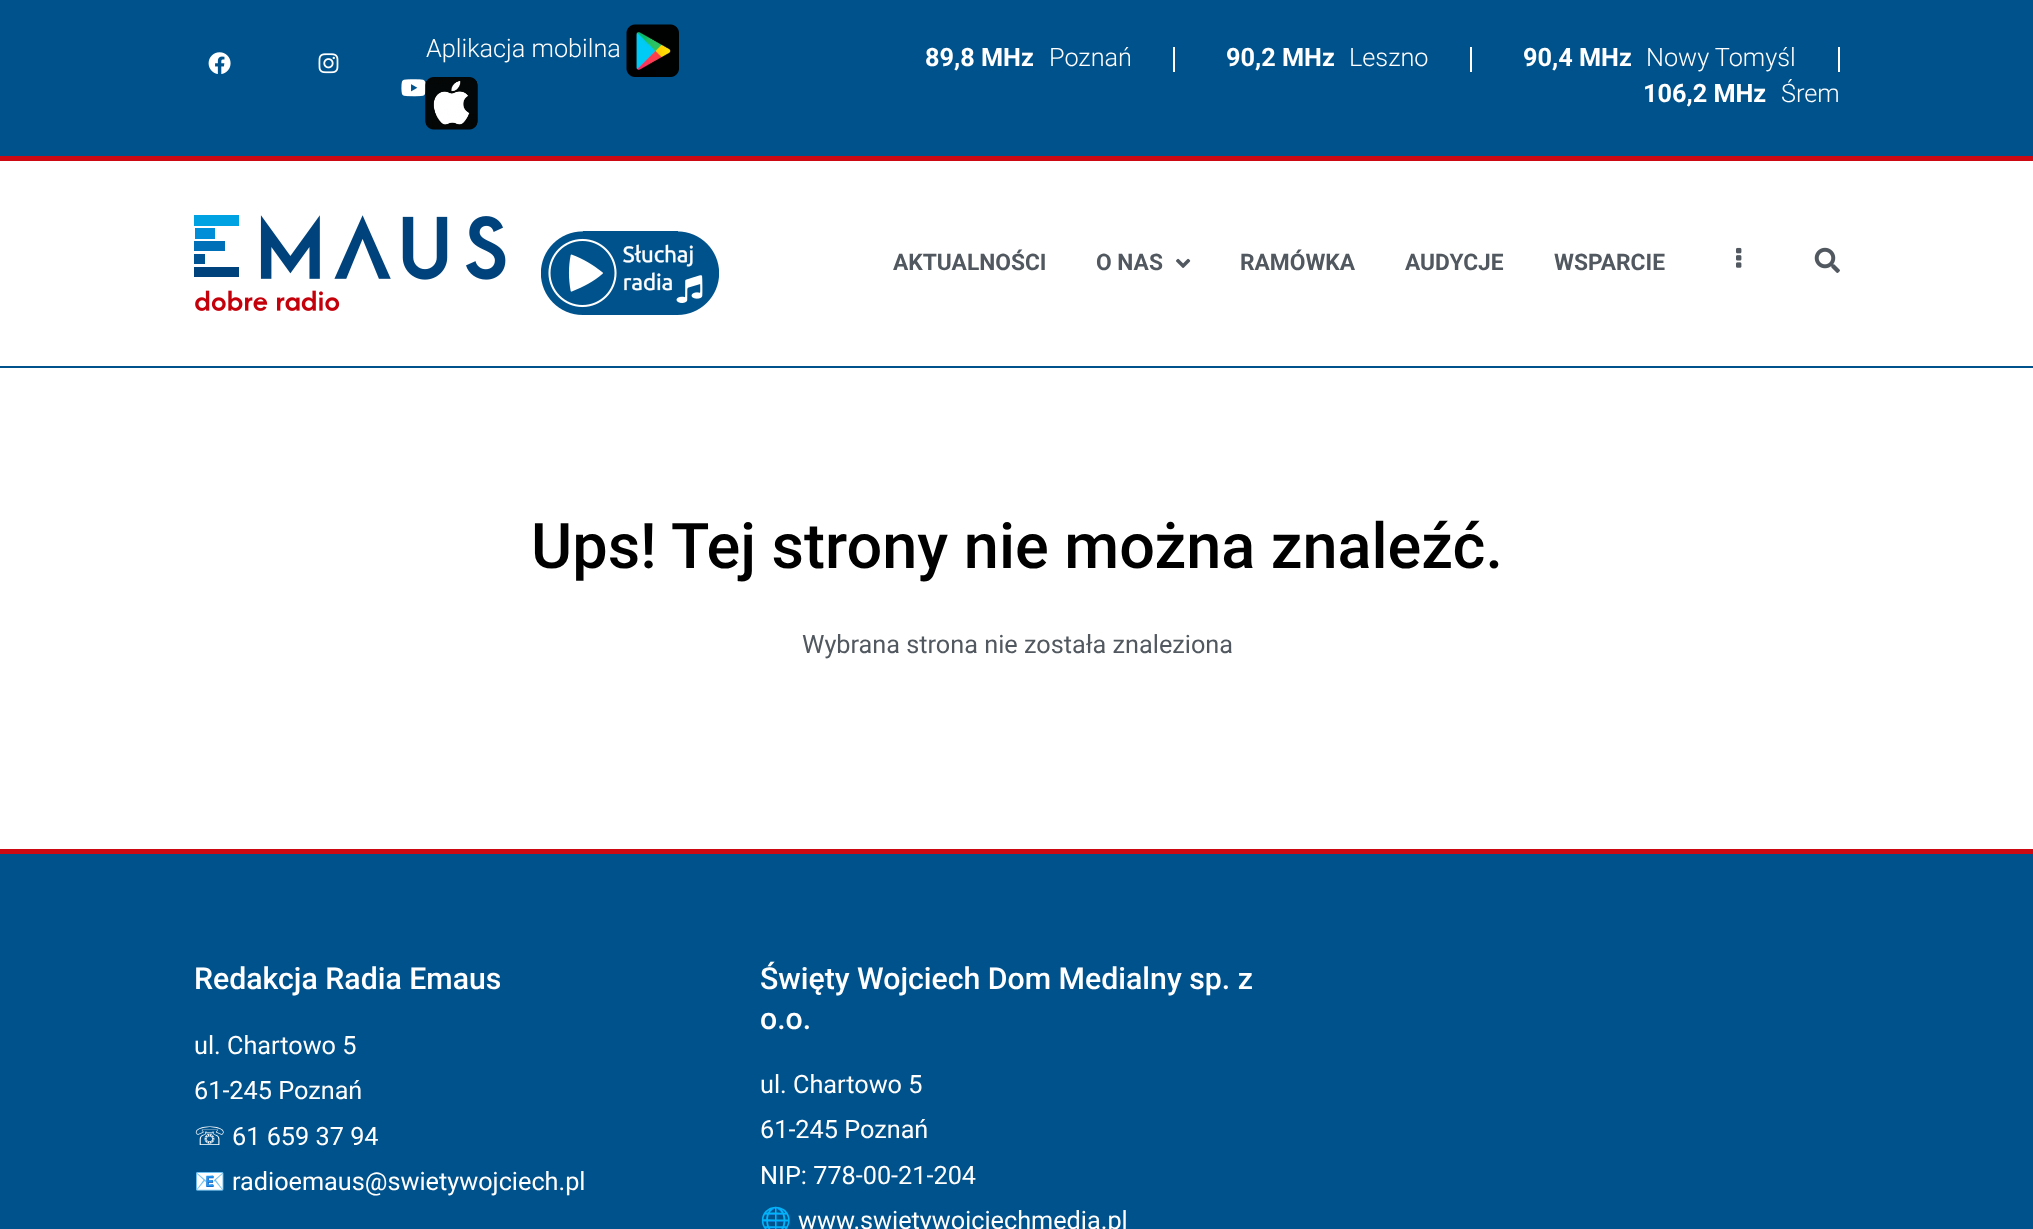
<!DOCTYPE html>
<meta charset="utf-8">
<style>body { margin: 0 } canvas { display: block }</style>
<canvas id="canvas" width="2033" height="1229"></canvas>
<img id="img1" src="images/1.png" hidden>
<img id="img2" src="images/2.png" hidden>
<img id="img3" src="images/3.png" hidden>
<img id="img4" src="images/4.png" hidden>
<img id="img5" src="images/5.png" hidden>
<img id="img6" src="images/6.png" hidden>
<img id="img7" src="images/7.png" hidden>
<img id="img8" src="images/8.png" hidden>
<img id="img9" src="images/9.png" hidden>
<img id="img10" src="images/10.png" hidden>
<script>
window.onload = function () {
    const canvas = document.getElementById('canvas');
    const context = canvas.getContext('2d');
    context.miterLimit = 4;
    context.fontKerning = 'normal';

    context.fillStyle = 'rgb(255, 255, 255)';
    context.fillRect(0, 0, 2033, 1229);
    context.fillStyle = 'rgb(0, 82, 140)';
    context.fillRect(0, 366, 2033, 2);
    context.fillRect(0, 0, 2033, 156);
    context.fillStyle = 'rgb(205, 9, 19)';
    context.fillRect(0, 156, 2033, 5);
    context.drawImage(document.getElementById('img1'), 208, 52, 23, 22);
    context.drawImage(document.getElementById('img2'), 318, 53, 21, 21);
    context.drawImage(document.getElementById('img3'), 401, 79, 25, 18);
    context.drawImage(document.getElementById('img4'), 626, 24, 53, 53);
    context.drawImage(document.getElementById('img5'), 425, 77, 53, 53);
    context.fillStyle = 'rgb(255, 255, 255)';
    context.fillRect(1173, 47, 2, 25);
    context.fillRect(1470, 47, 2, 25);
    context.fillRect(1838, 47, 2, 25);
    context.drawImage(document.getElementById('img6'), 194, 215, 312, 96);
    context.drawImage(document.getElementById('img7'), 541, 231, 178, 84);
    context.drawImage(document.getElementById('img8'), 1176, 258, 15, 10);
    context.drawImage(document.getElementById('img9'), 1736, 247, 6, 21);
    context.drawImage(document.getElementById('img10'), 1814, 247, 26, 26);
    context.fillStyle = 'rgb(0, 82, 140)';
    context.fillRect(0, 854, 2033, 375);
    context.fillStyle = 'rgb(205, 9, 19)';
    context.fillRect(0, 849, 2033, 5);
    context.font = '300 25.25px Roboto';
    context.fillStyle = 'rgb(255, 255, 255)';
    context.fillText('Aplikacja mobilna', 426, 57);
    context.font = 'bold 25.25px Roboto';
    context.fillText('89,8 MHz', 925, 66);
    context.font = '300 25.25px Roboto';
    context.fillText('Poznań', 1049, 66);
    context.font = 'bold 25.25px Roboto';
    context.fillText('90,2 MHz', 1226, 66);
    context.font = '300 25.25px Roboto';
    context.fillText('Leszno', 1349, 66);
    context.font = 'bold 25.25px Roboto';
    context.fillText('90,4 MHz', 1523, 66);
    context.font = '300 25.25px Roboto';
    context.fillText('Nowy Tomyśl', 1646, 66);
    context.font = 'bold 25.25px Roboto';
    context.fillText('106,2 MHz', 1643, 102);
    context.font = '300 25.25px Roboto';
    context.fillText('Śrem', 1781, 102);
    context.font = 'bold 22.75px Roboto';
    context.fillStyle = 'rgb(81, 88, 95)';
    context.fillText('AKTUALNOŚCI', 893, 270);
    context.fillText('O NAS', 1096, 270);
    context.fillText('RAMÓWKA', 1240, 270);
    context.fillText('AUDYCJE', 1405, 270);
    context.fillText('WSPARCIE', 1554, 270);
    context.font = '500 63px Roboto';
    context.fillStyle = 'rgb(0, 0, 0)';
    context.fillText('Ups! Tej strony nie można znaleźć.', 531, 568);
    context.font = '25.25px Roboto';
    context.fillStyle = 'rgb(81, 88, 95)';
    context.fillText('Wybrana strona nie została znaleziona', 802, 653);
    context.font = '500 30.25px Roboto';
    context.fillStyle = 'rgb(255, 255, 255)';
    context.fillText('Redakcja Radia Emaus', 194, 989);
    context.font = '25.25px Roboto';
    context.fillText('ul. Chartowo 5', 194, 1054);
    context.fillText('61-245 Poznań', 194, 1099);
    context.font = '25.25px DejaVu Sans';
    context.fillText('☏', 194, 1145);
    context.font = '25.25px Roboto';
    context.fillText('61 659 37 94', 232, 1145);
    context.font = '25.25px Noto Color Emoji';
    context.fillText('📧', 194, 1190);
    context.font = '25.25px Roboto';
    context.fillText('radioemaus@swietywojciech.pl', 232, 1190);
    context.font = '500 30.25px Roboto';
    context.fillText('Święty Wojciech Dom Medialny sp. z', 760, 989);
    context.fillText('o.o.', 760, 1029);
    context.font = '25.25px Roboto';
    context.fillText('ul. Chartowo 5', 760, 1093);
    context.fillText('61-245 Poznań', 760, 1138);
    context.fillText('NIP: 778-00-21-204', 760, 1184);
    context.font = '25.25px Noto Color Emoji';
    context.fillText('🌐', 760, 1229);
    context.font = '25.25px Roboto';
    context.fillText('www.swietywojciechmedia.pl', 798, 1229);
};
</script>
